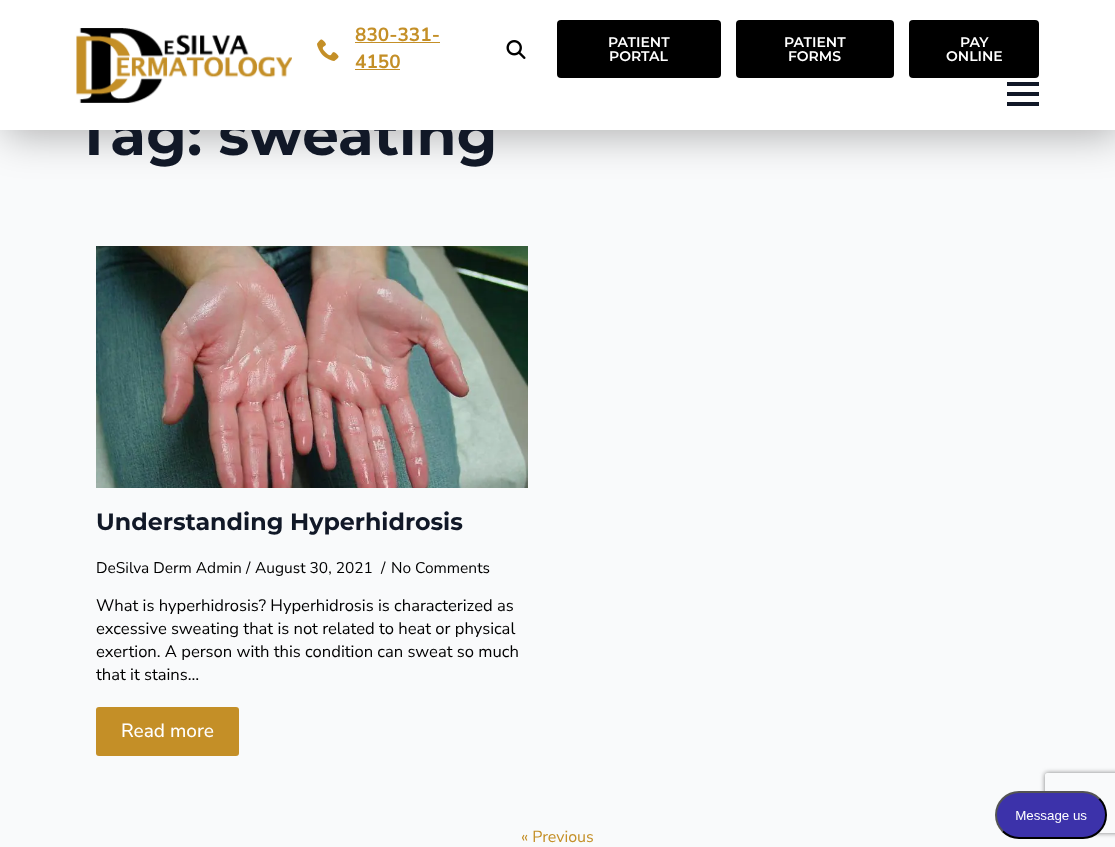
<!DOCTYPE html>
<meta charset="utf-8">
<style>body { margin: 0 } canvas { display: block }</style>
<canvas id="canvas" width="1115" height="847"></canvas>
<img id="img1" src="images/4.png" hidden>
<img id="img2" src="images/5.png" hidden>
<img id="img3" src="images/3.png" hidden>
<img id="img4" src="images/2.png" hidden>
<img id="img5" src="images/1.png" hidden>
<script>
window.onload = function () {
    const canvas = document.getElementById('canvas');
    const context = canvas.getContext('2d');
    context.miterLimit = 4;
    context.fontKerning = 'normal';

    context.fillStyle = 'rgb(249, 250, 251)';
    context.fillRect(0, 0, 1115, 847);
    context.fillStyle = 'rgba(0, 0, 0, 0.3)';
    context.filter = 'blur(20px)';
    context.beginPath();
    context.rect(5, 5, 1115, 130);
    context.fill();
    context.filter = 'none';
    context.drawImage(document.getElementById('img1'), 96, 246, 432, 242);
    context.fillStyle = 'rgb(196, 143, 39)';
    context.beginPath();
    context.roundRect(96, 707, 143, 49, 3);
    context.fill();
    context.save();
    context.beginPath();
    context.moveTo(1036, 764);
    context.lineTo(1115, 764);
    context.lineTo(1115, 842);
    context.lineTo(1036, 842);
    context.closePath();
    context.moveTo(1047, 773);
    context.lineTo(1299, 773);
    context.bezierCurveTo(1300, 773, 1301, 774, 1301, 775);
    context.lineTo(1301, 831);
    context.bezierCurveTo(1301, 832, 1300, 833, 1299, 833);
    context.lineTo(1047, 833);
    context.bezierCurveTo(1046, 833, 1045, 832, 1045, 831);
    context.lineTo(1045, 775);
    context.bezierCurveTo(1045, 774, 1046, 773, 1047, 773);
    context.closePath();
    context.clip('evenodd');
    context.fillStyle = 'rgb(128, 128, 128)';
    context.filter = 'blur(2.5px)';
    context.beginPath();
    context.roundRect(1045, 773, 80, 60, 2);
    context.fill();
    context.filter = 'none';
    context.restore();
    context.drawImage(document.getElementById('img2'), 995, 791, 112, 48);
    context.font = 'bold 58px Montserrat';
    context.fillStyle = 'rgb(17, 24, 39)';
    context.fillText('Tag: sweating', 76, 155);
    context.fillStyle = 'rgb(255, 255, 255)';
    context.fillRect(0, 0, 1115, 130);
    context.fillStyle = 'rgb(17, 24, 39)';
    context.fillRect(1007, 102, 32, 4);
    context.fillRect(1007, 82, 32, 4);
    context.fillRect(1007, 92, 32, 4);
    context.fillStyle = 'rgb(0, 0, 0)';
    context.beginPath();
    context.roundRect(909, 20, 130, 58, 4);
    context.fill();
    context.font = '600 14px Montserrat';
    context.fillStyle = 'rgb(255, 255, 255)';
    context.fillText('ONLINE', 946, 61);
    context.fillText('PAY', 960, 47);
    context.fillStyle = 'rgb(0, 0, 0)';
    context.beginPath();
    context.roundRect(736, 20, 158, 58, 4);
    context.fill();
    context.fillStyle = 'rgb(255, 255, 255)';
    context.fillText('FORMS', 788, 61);
    context.fillText('PATIENT', 784, 47);
    context.fillStyle = 'rgb(0, 0, 0)';
    context.beginPath();
    context.roundRect(557, 20, 164, 58, 4);
    context.fill();
    context.fillStyle = 'rgb(255, 255, 255)';
    context.fillText('PORTAL', 609, 61);
    context.fillText('PATIENT', 608, 47);
    context.drawImage(document.getElementById('img3'), 506, 40, 20, 19);
    context.drawImage(document.getElementById('img4'), 317, 39, 22, 22);
    context.font = 'bold 19px Nunito Sans';
    context.fillStyle = 'rgb(196, 143, 39)';
    context.fillText('4150', 355, 68);
    context.fillRect(355, 69, 45, 1);
    context.fillText('830-331-', 355, 41);
    context.fillRect(355, 42, 85, 1);
    context.drawImage(document.getElementById('img5'), 76, 28, 216, 75);
    context.font = 'bold 23.75px Montserrat';
    context.fillStyle = 'rgb(17, 24, 39)';
    context.fillText('Understanding Hyperhidrosis', 96, 530);
    context.font = '15.5px Nunito Sans';
    context.fillStyle = 'rgb(0, 0, 0)';
    context.fillText('DeSilva Derm Admin', 96, 573);
    context.fillText('/', 246, 573);
    context.fillText('August 30, 2021', 255, 573);
    context.fillText('/', 381, 573);
    context.fillText('No Comments', 391, 573);
    context.font = '16.6px Nunito Sans';
    context.fillText('What is hyperhidrosis? Hyperhidrosis is characterized as', 96, 611);
    context.fillText('excessive sweating that is not related to heat or physical', 96, 634);
    context.fillText('exertion. A person with this condition can sweat so much', 96, 657);
    context.fillText('that it stains…', 96, 680);
    context.font = '500 19px Nunito Sans';
    context.fillStyle = 'rgb(255, 255, 255)';
    context.fillText('Read more', 121, 737);
    context.font = '16px Nunito Sans';
    context.fillStyle = 'rgb(196, 143, 39)';
    context.fillText('« Previous', 521, 842);
};
</script>
